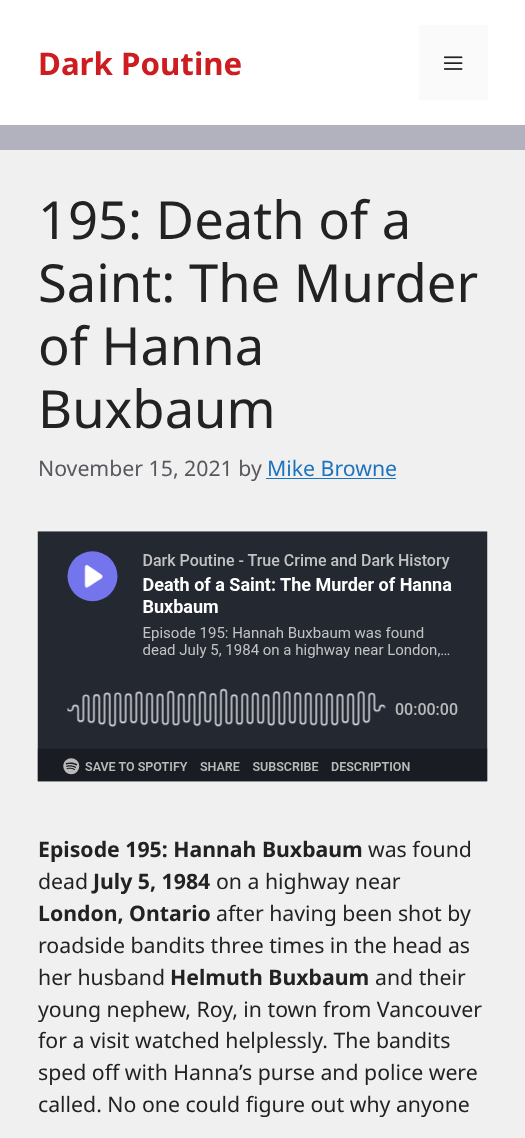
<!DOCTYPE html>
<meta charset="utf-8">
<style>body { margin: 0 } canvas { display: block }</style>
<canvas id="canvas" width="525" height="1138"></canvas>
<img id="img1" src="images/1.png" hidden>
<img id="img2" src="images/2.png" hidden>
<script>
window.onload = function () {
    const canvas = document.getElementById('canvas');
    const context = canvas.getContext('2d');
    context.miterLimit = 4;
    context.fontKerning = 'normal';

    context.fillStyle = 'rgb(178, 178, 190)';
    context.fillRect(0, 0, 525, 1138);
    context.fillStyle = 'rgb(255, 255, 255)';
    context.fillRect(0, 0, 525, 125);
    context.fillStyle = 'rgb(250, 250, 250)';
    context.fillRect(419, 25, 69, 75);
    context.drawImage(document.getElementById('img1'), 444, 56, 19, 14);
    context.fillStyle = 'rgb(240, 240, 240)';
    context.fillRect(0, 150, 525, 988);
    context.fillStyle = 'rgb(30, 115, 190)';
    context.fillRect(266, 478, 130, 1);
    context.drawImage(document.getElementById('img2'), 37, 531, 451, 251);
    context.font = 'bold 31.25px Noto Sans';
    context.fillStyle = 'rgb(205, 29, 32)';
    context.fillText('Dark Poutine', 38, 75);
    context.font = '52.5px Noto Sans';
    context.fillStyle = 'rgb(34, 34, 34)';
    context.fillText('195: Death of a', 38, 239);
    context.fillText('Saint: The Murder', 38, 302);
    context.fillText('of Hanna', 38, 365);
    context.fillText('Buxbaum', 38, 428);
    context.font = '21.25px Noto Sans';
    context.fillStyle = 'rgb(87, 87, 96)';
    context.fillText('November 15, 2021 by', 38, 476);
    context.fillStyle = 'rgb(30, 115, 190)';
    context.fillText('Mike Browne', 267, 476);
    context.font = 'bold 21.25px Noto Sans';
    context.fillStyle = 'rgb(34, 34, 34)';
    context.fillText('Episode 195: Hannah Buxbaum', 38, 857);
    context.font = '21.25px Noto Sans';
    context.fillText('was found', 368, 857);
    context.fillText('dead', 38, 889);
    context.font = 'bold 21.25px Noto Sans';
    context.fillText('July 5, 1984', 93, 889);
    context.font = '21.25px Noto Sans';
    context.fillText('on a highway near', 216, 889);
    context.font = 'bold 21.25px Noto Sans';
    context.fillText('London, Ontario', 38, 921);
    context.font = '21.25px Noto Sans';
    context.fillText('after having been shot by', 216, 921);
    context.fillText('roadside bandits three times in the head as', 38, 953);
    context.fillText('her husband', 38, 985);
    context.font = 'bold 21.25px Noto Sans';
    context.fillText('Helmuth Buxbaum', 170, 985);
    context.font = '21.25px Noto Sans';
    context.fillText('and their', 375, 985);
    context.fillText('young nephew, Roy, in town from Vancouver', 38, 1017);
    context.fillText('for a visit watched helplessly. The bandits', 38, 1048);
    context.fillText('sped off with Hanna’s purse and police were', 38, 1080);
    context.fillText('called. No one could figure out why anyone', 38, 1112);
};
</script>
